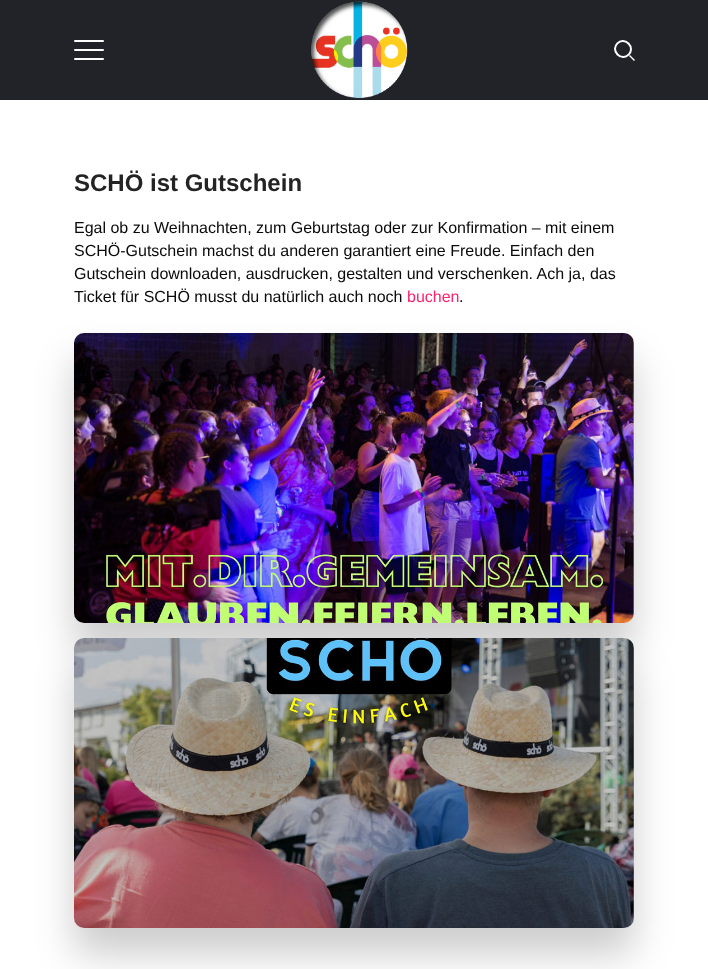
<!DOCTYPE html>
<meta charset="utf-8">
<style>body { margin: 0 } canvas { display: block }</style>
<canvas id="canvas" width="708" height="969"></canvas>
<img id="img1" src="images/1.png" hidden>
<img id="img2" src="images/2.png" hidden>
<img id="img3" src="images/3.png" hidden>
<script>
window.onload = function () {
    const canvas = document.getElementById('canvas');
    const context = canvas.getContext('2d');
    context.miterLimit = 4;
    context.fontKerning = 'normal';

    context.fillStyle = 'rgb(255, 255, 255)';
    context.fillRect(0, 0, 708, 969);
    context.fillStyle = 'rgb(34, 35, 40)';
    context.fillRect(0, 0, 708, 100);
    context.fillStyle = 'rgb(255, 255, 255)';
    context.beginPath();
    context.roundRect(74, 40, 30, 2, 1);
    context.fill();
    context.beginPath();
    context.roundRect(74, 49, 30, 2, 1);
    context.fill();
    context.beginPath();
    context.roundRect(74, 58, 30, 2, 1);
    context.fill();
    context.drawImage(document.getElementById('img1'), 311, 1, 97, 98);
    context.beginPath();
    context.moveTo(628.5, 43.5);
    context.bezierCurveTo(636, 51, 625, 62, 617.5, 54.5);
    context.bezierCurveTo(610, 47, 621, 36, 628.5, 43.5);
    context.closePath();
    context.strokeStyle = 'rgb(255, 255, 255)';
    context.lineWidth = 2;
    context.stroke();
    context.beginPath();
    context.moveTo(629, 56);
    context.lineTo(630, 55);
    context.lineTo(635, 60);
    context.lineTo(634, 61);
    context.closePath();
    context.fill();
    context.fillStyle = 'rgba(0, 0, 0, 0.2)';
    context.filter = 'blur(19px)';
    context.beginPath();
    context.roundRect(74, 359, 560, 290, 10);
    context.fill();
    context.filter = 'none';
    context.fillStyle = 'rgb(255, 255, 255)';
    context.beginPath();
    context.roundRect(74, 333, 560, 290, 10);
    context.fill();
    context.drawImage(document.getElementById('img2'), 74, 333, 560, 290);
    context.fillStyle = 'rgba(0, 0, 0, 0.2)';
    context.filter = 'blur(19px)';
    context.beginPath();
    context.roundRect(74, 664, 560, 290, 10);
    context.fill();
    context.filter = 'none';
    context.fillStyle = 'rgb(255, 255, 255)';
    context.beginPath();
    context.roundRect(74, 638, 560, 290, 10);
    context.fill();
    context.drawImage(document.getElementById('img3'), 74, 638, 560, 290);
    context.font = 'bold 24px Liberation Sans';
    context.fillStyle = 'rgb(35, 35, 35)';
    context.fillText('SCHÖ ist Gutschein', 74, 191);
    context.font = '16px Liberation Sans';
    context.fillStyle = 'rgb(10, 10, 10)';
    context.fillText('Egal ob zu Weihnachten, zum Geburtstag oder zur Konfirmation – mit einem', 74, 233);
    context.fillText('SCHÖ-Gutschein machst du anderen garantiert eine Freude. Einfach den', 74, 256);
    context.fillText('Gutschein downloaden, ausdrucken, gestalten und verschenken. Ach ja, das', 74, 279);
    context.fillText('Ticket für SCHÖ musst du natürlich auch noch', 74, 302);
    context.fillStyle = 'rgb(253, 34, 106)';
    context.fillText('buchen', 407, 302);
    context.fillStyle = 'rgb(10, 10, 10)';
    context.fillText('.', 459, 302);
};
</script>
